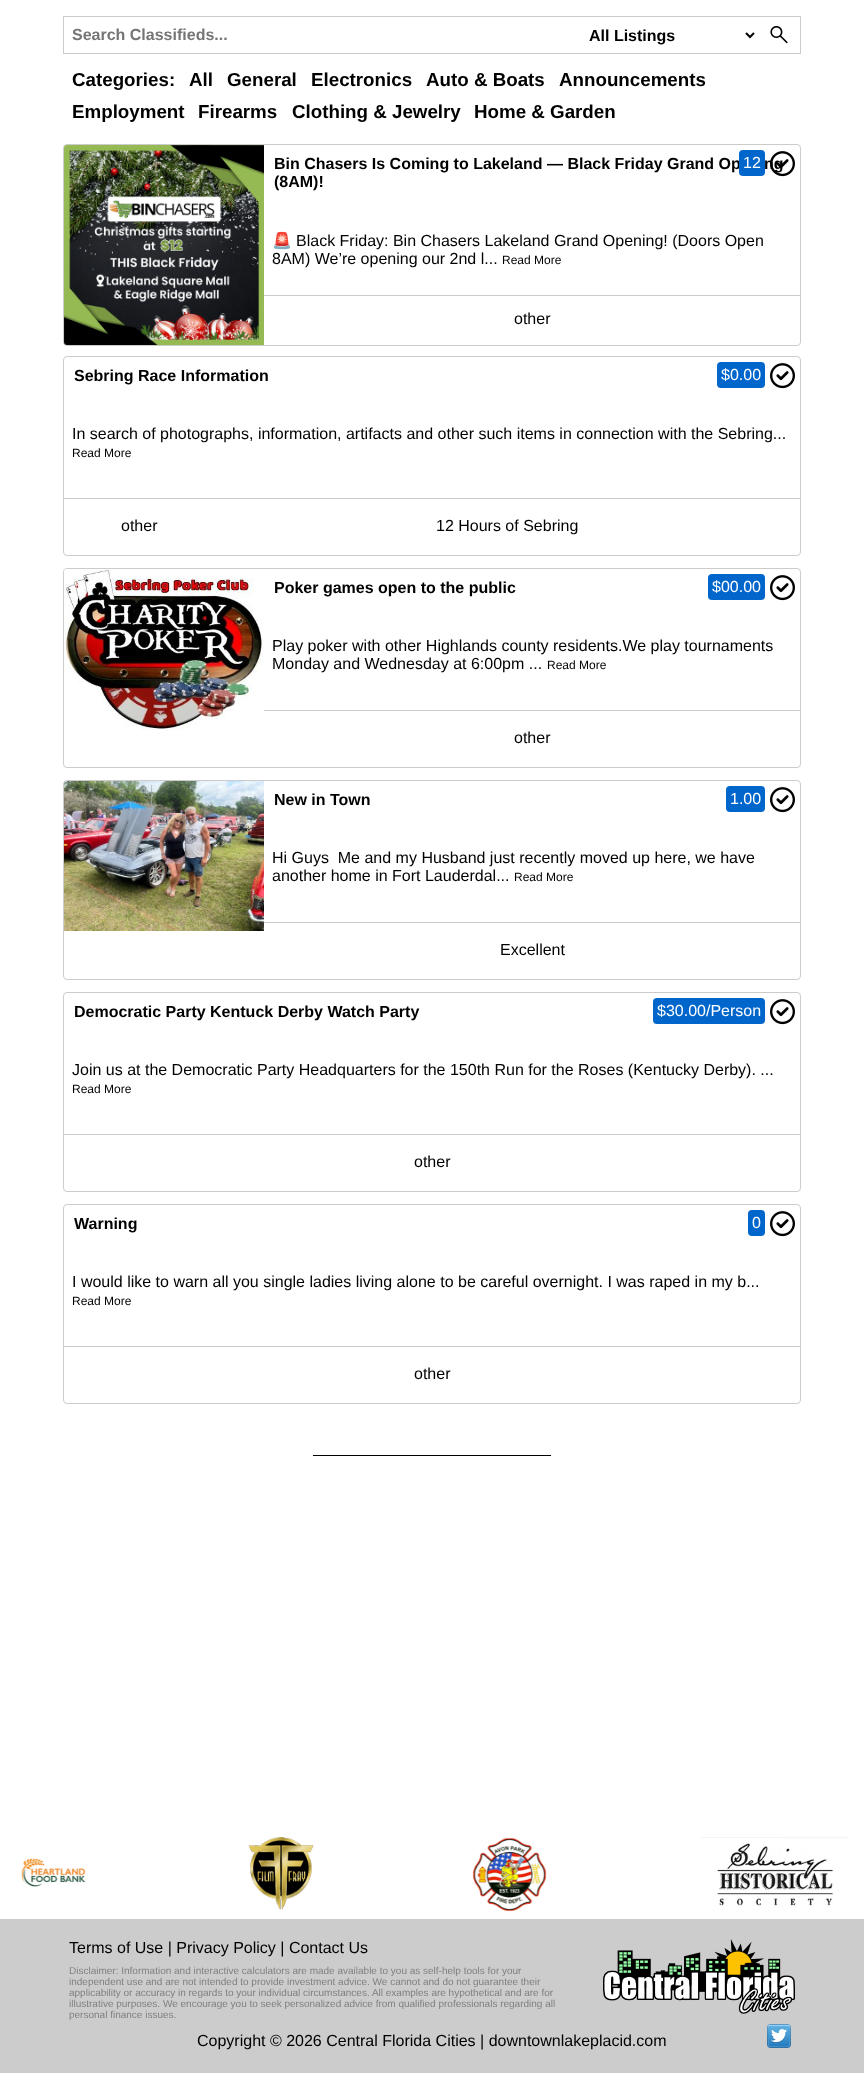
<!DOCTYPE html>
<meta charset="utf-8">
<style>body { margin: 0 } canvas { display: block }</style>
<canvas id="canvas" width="864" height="2073"></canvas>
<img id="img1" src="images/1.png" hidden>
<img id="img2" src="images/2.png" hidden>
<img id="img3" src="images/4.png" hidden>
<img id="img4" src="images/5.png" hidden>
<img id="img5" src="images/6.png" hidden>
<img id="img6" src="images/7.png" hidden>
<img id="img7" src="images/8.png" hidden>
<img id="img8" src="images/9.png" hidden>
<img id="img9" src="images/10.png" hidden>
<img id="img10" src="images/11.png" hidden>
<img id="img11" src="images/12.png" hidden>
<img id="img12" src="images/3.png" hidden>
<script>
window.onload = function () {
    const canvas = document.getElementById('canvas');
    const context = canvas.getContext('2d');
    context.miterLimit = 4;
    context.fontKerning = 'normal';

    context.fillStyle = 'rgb(255, 255, 255)';
    context.fillRect(0, 0, 864, 2073);
    context.strokeStyle = 'rgb(204, 204, 204)';
    context.strokeRect(63.5, 16.5, 737, 37);
    context.beginPath();
    context.moveTo(746, 33);
    context.lineTo(750, 37);
    context.lineTo(754, 33);
    context.strokeStyle = 'rgb(0, 0, 0)';
    context.lineWidth = 2;
    context.stroke();
    context.drawImage(document.getElementById('img1'), 770, 26, 18, 18);
    context.beginPath();
    context.roundRect(63.5, 144.5, 737, 201, 3.5);
    context.strokeStyle = 'rgb(204, 204, 204)';
    context.lineWidth = 1;
    context.stroke();
    context.drawImage(document.getElementById('img2'), 64, 145, 200, 200);
    context.fillStyle = 'rgb(204, 204, 204)';
    context.fillRect(264, 295, 536, 1);
    context.beginPath();
    context.roundRect(63.5, 356.5, 737, 199, 3.5);
    context.stroke();
    context.fillStyle = 'rgb(0, 102, 204)';
    context.beginPath();
    context.roundRect(717, 362, 48, 26, 4);
    context.fill();
    context.drawImage(document.getElementById('img3'), 770, 363, 25, 26);
    context.fillStyle = 'rgb(204, 204, 204)';
    context.fillRect(64, 498, 736, 1);
    context.beginPath();
    context.roundRect(63.5, 568.5, 737, 199, 3.5);
    context.stroke();
    context.drawImage(document.getElementById('img4'), 64, 569, 199, 161);
    context.fillStyle = 'rgb(0, 102, 204)';
    context.beginPath();
    context.roundRect(708, 574, 57, 26, 4);
    context.fill();
    context.drawImage(document.getElementById('img3'), 770, 575, 25, 26);
    context.fillStyle = 'rgb(204, 204, 204)';
    context.fillRect(264, 710, 536, 1);
    context.beginPath();
    context.roundRect(63.5, 780.5, 737, 199, 3.5);
    context.stroke();
    context.drawImage(document.getElementById('img5'), 64, 781, 200, 150);
    context.fillStyle = 'rgb(0, 102, 204)';
    context.beginPath();
    context.roundRect(726, 786, 39, 26, 4);
    context.fill();
    context.drawImage(document.getElementById('img3'), 770, 787, 25, 26);
    context.fillStyle = 'rgb(204, 204, 204)';
    context.fillRect(264, 922, 536, 1);
    context.beginPath();
    context.roundRect(63.5, 992.5, 737, 199, 3.5);
    context.stroke();
    context.fillStyle = 'rgb(0, 102, 204)';
    context.beginPath();
    context.roundRect(653, 998, 112, 26, 4);
    context.fill();
    context.drawImage(document.getElementById('img3'), 770, 999, 25, 26);
    context.fillStyle = 'rgb(204, 204, 204)';
    context.fillRect(64, 1134, 736, 1);
    context.beginPath();
    context.roundRect(63.5, 1204.5, 737, 199, 3.5);
    context.stroke();
    context.fillStyle = 'rgb(0, 102, 204)';
    context.beginPath();
    context.roundRect(748, 1210, 17, 26, 4);
    context.fill();
    context.drawImage(document.getElementById('img3'), 770, 1211, 25, 26);
    context.fillStyle = 'rgb(204, 204, 204)';
    context.fillRect(64, 1346, 736, 1);
    context.fillStyle = 'rgb(0, 0, 0)';
    context.fillRect(313, 1455, 238, 1);
    context.drawImage(document.getElementById('img6'), 21, 1858, 65, 29);
    context.drawImage(document.getElementById('img7'), 248, 1837, 66, 73);
    context.drawImage(document.getElementById('img8'), 472, 1837, 75, 75);
    context.drawImage(document.getElementById('img9'), 701, 1837, 147, 70);
    context.fillStyle = 'rgb(204, 204, 204)';
    context.fillRect(0, 1919, 864, 154);
    context.drawImage(document.getElementById('img10'), 603, 1939, 192, 75);
    context.drawImage(document.getElementById('img11'), 767, 2024, 24, 24);
    context.font = 'bold 16px Liberation Sans';
    context.fillStyle = 'rgb(117, 117, 117)';
    context.fillText('Search Classifieds...', 72, 40);
    context.fillStyle = 'rgb(0, 0, 0)';
    context.fillText('All Listings', 589, 41);
    context.font = 'bold 18.75px Liberation Sans';
    context.fillText('Categories:', 72, 86);
    context.fillText('All', 189, 86);
    context.fillText('General', 227, 86);
    context.fillText('Electronics', 311, 86);
    context.fillText('Auto & Boats', 426, 86);
    context.fillText('Announcements', 559, 86);
    context.fillText('Employment', 72, 118);
    context.fillText('Firearms', 198, 118);
    context.fillText('Clothing & Jewelry', 292, 118);
    context.fillText('Home & Garden', 474, 118);
    context.font = 'bold 16px Liberation Sans';
    context.fillText('Bin Chasers Is Coming to Lakeland — Black Friday Grand Op', 274, 169);
    context.fillText('ng', 764, 169);
    context.drawImage(document.getElementById('img12'), 770, 151, 25, 26);
    context.fillStyle = 'rgb(0, 102, 204)';
    context.beginPath();
    context.roundRect(739, 150, 26, 26, 4);
    context.fill();
    context.font = '16px Liberation Sans';
    context.fillStyle = 'rgb(255, 255, 255)';
    context.fillText('12', 743, 168);
    context.font = 'bold 16px Liberation Sans';
    context.fillStyle = 'rgb(0, 0, 0)';
    context.fillText('(8AM)!', 274, 187);
    context.font = '16px Noto Color Emoji';
    context.fillText('🚨', 272, 246);
    context.font = '16px Liberation Sans';
    context.fillText('Black Friday: Bin Chasers Lakeland Grand Opening! (Doors Open', 296, 246);
    context.fillText('8AM) We’re opening our 2nd l...', 272, 264);
    context.font = '12px Liberation Sans';
    context.fillText('Read More', 502, 264);
    context.font = '16px Liberation Sans';
    context.fillText('other', 514, 324);
    context.font = 'bold 16px Liberation Sans';
    context.fillText('Sebring Race Information', 74, 381);
    context.font = '16px Liberation Sans';
    context.fillStyle = 'rgb(255, 255, 255)';
    context.fillText('$0.00', 721, 380);
    context.fillStyle = 'rgb(0, 0, 0)';
    context.fillText('In search of photographs, information, artifacts and other such items in connection with the Sebring...', 72, 439);
    context.font = '12px Liberation Sans';
    context.fillText('Read More', 72, 457);
    context.font = '16px Liberation Sans';
    context.fillText('other', 121, 531);
    context.fillText('12 Hours of Sebring', 436, 531);
    context.font = 'bold 16px Liberation Sans';
    context.fillText('Poker games open to the public', 274, 593);
    context.font = '16px Liberation Sans';
    context.fillStyle = 'rgb(255, 255, 255)';
    context.fillText('$00.00', 712, 592);
    context.fillStyle = 'rgb(0, 0, 0)';
    context.fillText('Play poker with other Highlands county residents.We play tournaments', 272, 651);
    context.fillText('Monday and Wednesday at 6:00pm ...', 272, 669);
    context.font = '12px Liberation Sans';
    context.fillText('Read More', 547, 669);
    context.font = '16px Liberation Sans';
    context.fillText('other', 514, 743);
    context.font = 'bold 16px Liberation Sans';
    context.fillText('New in Town', 274, 805);
    context.font = '16px Liberation Sans';
    context.fillStyle = 'rgb(255, 255, 255)';
    context.fillText('1.00', 730, 804);
    context.fillStyle = 'rgb(0, 0, 0)';
    context.fillText('Hi Guys  Me and my Husband just recently moved up here, we have', 272, 863);
    context.fillText('another home in Fort Lauderdal...', 272, 881);
    context.font = '12px Liberation Sans';
    context.fillText('Read More', 514, 881);
    context.font = '16px Liberation Sans';
    context.fillText('Excellent', 500, 955);
    context.font = 'bold 16px Liberation Sans';
    context.fillText('Democratic Party Kentuck Derby Watch Party', 74, 1017);
    context.font = '16px Liberation Sans';
    context.fillStyle = 'rgb(255, 255, 255)';
    context.fillText('$30.00/Person', 657, 1016);
    context.fillStyle = 'rgb(0, 0, 0)';
    context.fillText('Join us at the Democratic Party Headquarters for the 150th Run for the Roses (Kentucky Derby). ...', 72, 1075);
    context.font = '12px Liberation Sans';
    context.fillText('Read More', 72, 1093);
    context.font = '16px Liberation Sans';
    context.fillText('other', 414, 1167);
    context.font = 'bold 16px Liberation Sans';
    context.fillText('Warning', 74, 1229);
    context.font = '16px Liberation Sans';
    context.fillStyle = 'rgb(255, 255, 255)';
    context.fillText('0', 752, 1228);
    context.fillStyle = 'rgb(0, 0, 0)';
    context.fillText('I would like to warn all you single ladies living alone to be careful overnight. I was raped in my b...', 72, 1287);
    context.font = '12px Liberation Sans';
    context.fillText('Read More', 72, 1305);
    context.font = '16px Liberation Sans';
    context.fillText('other', 414, 1379);
    context.fillText('Terms of Use | Privacy Policy | Contact Us', 69, 1953);
    context.font = '10px Liberation Sans';
    context.fillStyle = 'rgb(128, 128, 128)';
    context.fillText('Disclaimer: Information and interactive calculators are made available to you as self-help tools for your', 69, 1974);
    context.fillText('independent use and are not intended to provide investment advice. We cannot and do not guarantee their', 69, 1985);
    context.fillText('applicability or accuracy in regards to your individual circumstances. All examples are hypothetical and are for', 69, 1996);
    context.fillText('illustrative purposes. We encourage you to seek personalized advice from qualified professionals regarding all', 69, 2007);
    context.fillText('personal finance issues.', 69, 2018);
    context.font = '16px Liberation Sans';
    context.fillStyle = 'rgb(0, 0, 0)';
    context.fillText('Copyright © 2026 Central Florida Cities | downtownlakeplacid.com', 197, 2046);
};
</script>
